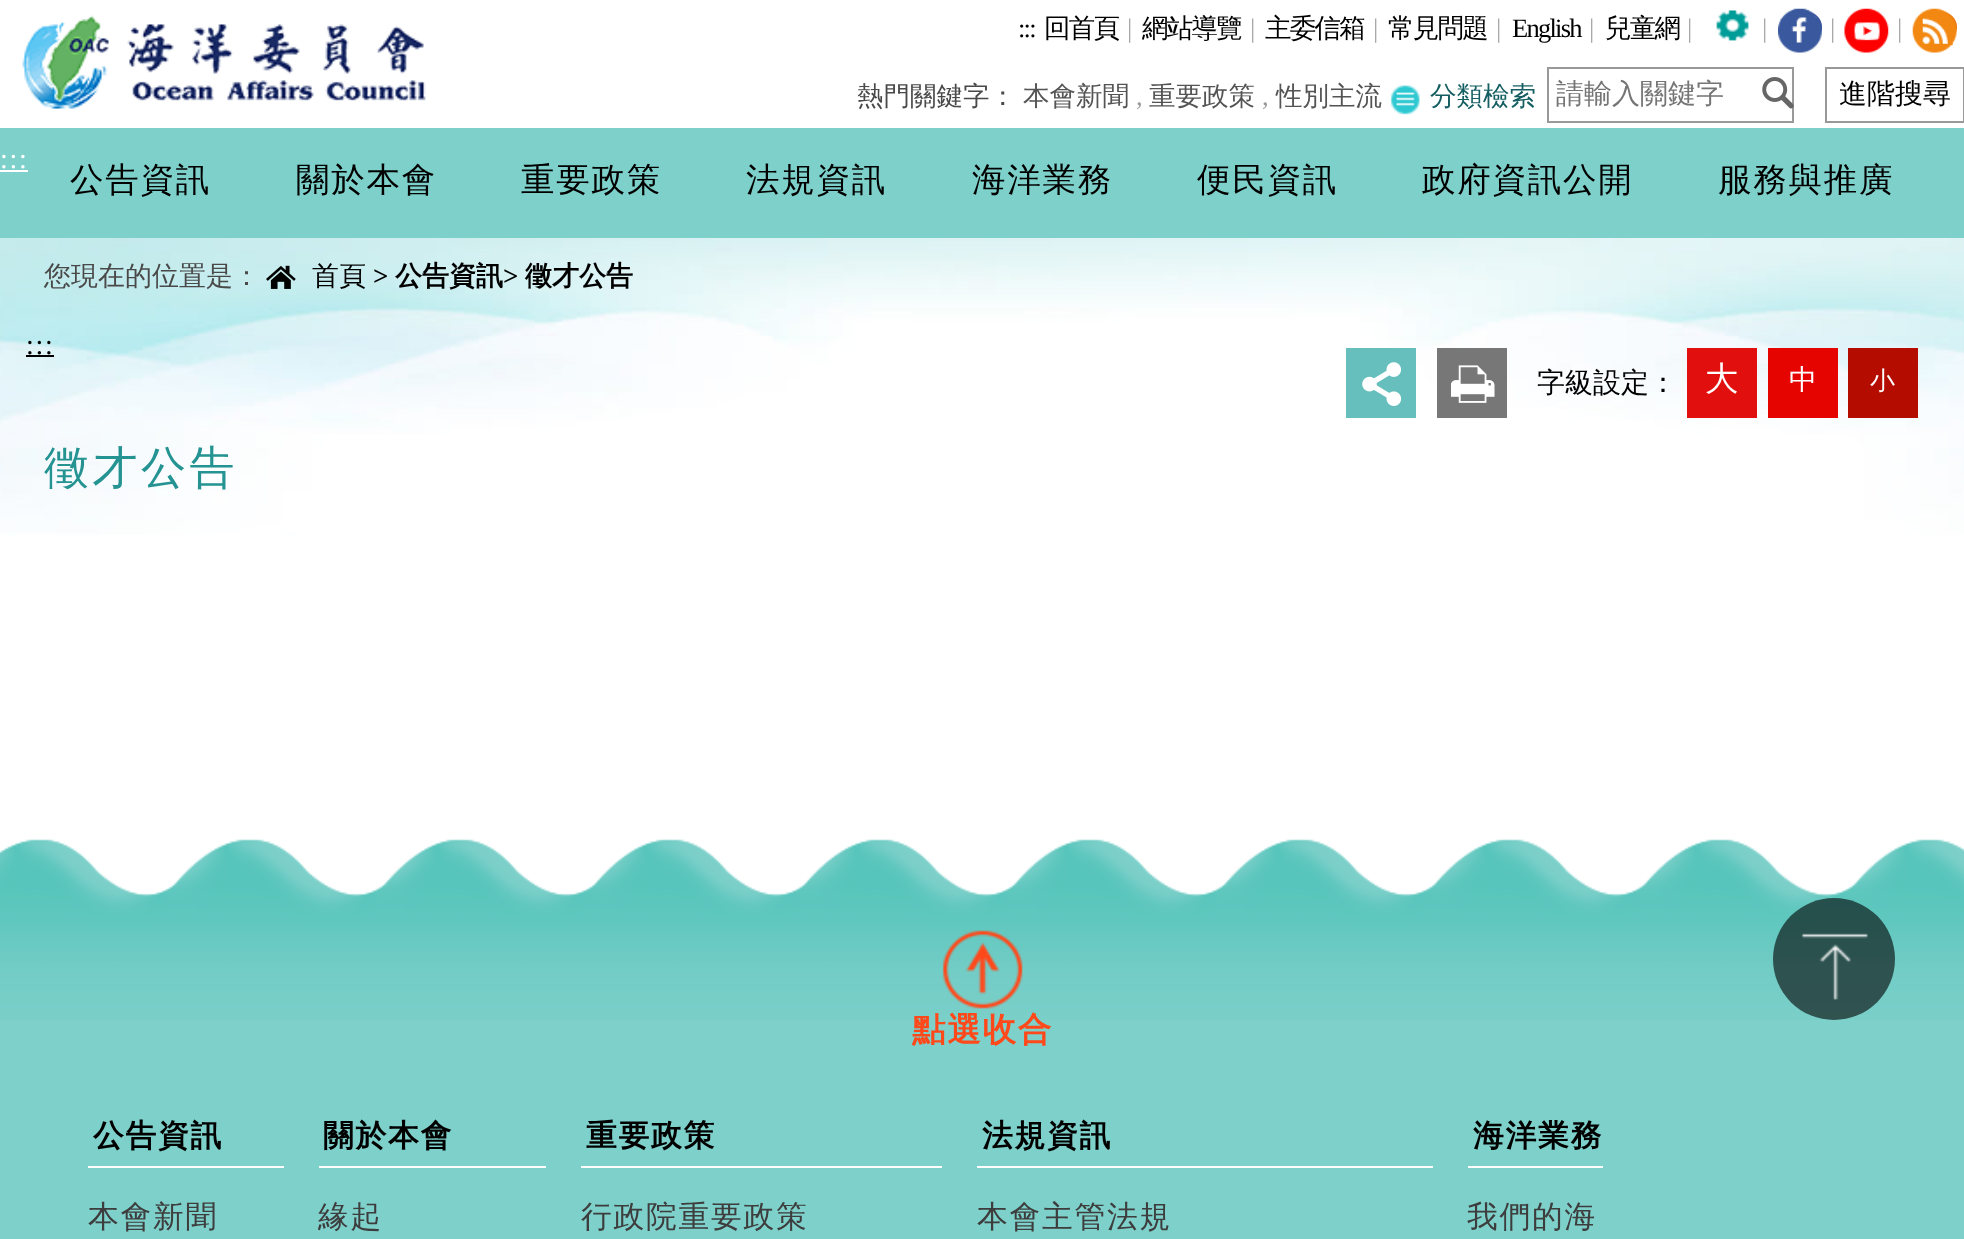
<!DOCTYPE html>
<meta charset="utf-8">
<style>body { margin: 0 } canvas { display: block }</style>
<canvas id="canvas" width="1964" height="1239"></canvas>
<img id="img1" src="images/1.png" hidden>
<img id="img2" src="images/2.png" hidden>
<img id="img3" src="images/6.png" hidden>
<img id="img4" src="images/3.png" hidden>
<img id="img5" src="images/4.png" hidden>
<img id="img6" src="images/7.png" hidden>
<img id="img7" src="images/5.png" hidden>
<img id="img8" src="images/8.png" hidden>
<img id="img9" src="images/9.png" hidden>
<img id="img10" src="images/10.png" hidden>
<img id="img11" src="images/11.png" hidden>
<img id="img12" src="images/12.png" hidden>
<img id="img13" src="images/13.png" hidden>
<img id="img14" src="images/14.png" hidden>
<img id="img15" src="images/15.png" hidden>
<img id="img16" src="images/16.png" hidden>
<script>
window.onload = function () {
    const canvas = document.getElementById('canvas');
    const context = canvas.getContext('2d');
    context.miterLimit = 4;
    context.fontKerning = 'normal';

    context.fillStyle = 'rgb(255, 255, 255)';
    context.fillRect(0, 0, 1964, 1239);
    context.drawImage(document.getElementById('img1'), 22, 15, 404, 94);
    context.drawImage(document.getElementById('img2'), 1716, 10, 33, 31);
    context.drawImage(document.getElementById('img3'), 1790, 12, 32, 23);
    context.drawImage(document.getElementById('img4'), 1778, 8, 44, 45);
    context.drawImage(document.getElementById('img5'), 1844, 8, 45, 45);
    context.drawImage(document.getElementById('img6'), 1944, 12, 13, 23);
    context.drawImage(document.getElementById('img7'), 1912, 8, 45, 45);
    context.drawImage(document.getElementById('img8'), 1390, 85, 30, 30);
    context.strokeStyle = 'rgb(153, 153, 153)';
    context.lineWidth = 2;
    context.strokeRect(1548, 68, 245, 54);
    context.drawImage(document.getElementById('img9'), 1762, 77, 32, 32);
    context.strokeRect(1826, 68, 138, 54);
    context.fillStyle = 'rgb(126, 208, 202)';
    context.fillRect(0, 128, 1964, 110);
    context.fillStyle = 'rgb(255, 255, 255)';
    context.fillRect(0, 170, 28, 2);
    context.drawImage(document.getElementById('img10'), 0, 238, 1964, 297);
    context.drawImage(document.getElementById('img11'), 266, 265, 30, 24);
    context.fillStyle = 'rgb(0, 0, 0)';
    context.fillRect(26, 355, 28, 2);
    context.fillStyle = 'rgb(103, 191, 189)';
    context.fillRect(1346, 348, 70, 70);
    context.drawImage(document.getElementById('img12'), 1362, 362, 40, 44);
    context.fillStyle = 'rgb(119, 119, 119)';
    context.fillRect(1437, 348, 70, 70);
    context.drawImage(document.getElementById('img13'), 1451, 365, 44, 38);
    context.fillStyle = 'rgb(226, 15, 15)';
    context.fillRect(1687, 348, 70, 70);
    context.fillStyle = 'rgb(229, 4, 0)';
    context.fillRect(1768, 348, 70, 70);
    context.fillStyle = 'rgb(181, 12, 0)';
    context.fillRect(1848, 348, 70, 70);
    context.drawImage(document.getElementById('img14'), 0, 839, 1964, 181);
    context.fillStyle = 'rgba(0, 0, 0, 0.6)';
    context.beginPath();
    context.arc(1834, 959, 61, 0, 2 * Math.PI);
    context.fill();
    context.drawImage(document.getElementById('img15'), 1801, 933, 67, 67);
    context.fillStyle = 'rgb(126, 208, 202)';
    context.fillRect(0, 1020, 1964, 219);
    context.drawImage(document.getElementById('img16'), 942, 930, 81, 79);
    context.fillStyle = 'rgb(255, 255, 255)';
    context.fillRect(88, 1166, 196, 2);
    context.fillRect(319, 1166, 227, 2);
    context.fillRect(581, 1166, 361, 2);
    context.fillRect(977, 1166, 456, 2);
    context.fillRect(1468, 1166, 135, 2);
    context.letterSpacing = '-1.75px';
    context.font = '26.5px Liberation Serif';
    context.fillStyle = 'rgb(0, 0, 0)';
    context.fillText(':::', 1018, 37);
    context.font = '500 26.5px WenQuanYi Zen Hei';
    context.fillText('回首頁', 1044, 37);
    context.letterSpacing = '1.75px';
    context.font = '26.5px Liberation Serif';
    context.fillStyle = 'rgb(169, 169, 169)';
    context.fillText('|', 1127, 37);
    context.letterSpacing = '-1.75px';
    context.font = '500 26.5px WenQuanYi Zen Hei';
    context.fillStyle = 'rgb(0, 0, 0)';
    context.fillText('網站導覽', 1142, 37);
    context.letterSpacing = '1.75px';
    context.font = '26.5px Liberation Serif';
    context.fillStyle = 'rgb(169, 169, 169)';
    context.fillText('|', 1250, 37);
    context.letterSpacing = '-1.75px';
    context.font = '500 26.5px WenQuanYi Zen Hei';
    context.fillStyle = 'rgb(0, 0, 0)';
    context.fillText('主委信箱', 1265, 37);
    context.letterSpacing = '1.75px';
    context.font = '26.5px Liberation Serif';
    context.fillStyle = 'rgb(169, 169, 169)';
    context.fillText('|', 1373, 37);
    context.letterSpacing = '-1.75px';
    context.font = '500 26.5px WenQuanYi Zen Hei';
    context.fillStyle = 'rgb(0, 0, 0)';
    context.fillText('常見問題', 1388, 37);
    context.letterSpacing = '1.75px';
    context.font = '26.5px Liberation Serif';
    context.fillStyle = 'rgb(169, 169, 169)';
    context.fillText('|', 1496, 37);
    context.letterSpacing = '-1.75px';
    context.fillStyle = 'rgb(0, 0, 0)';
    context.fillText('English', 1512, 37);
    context.letterSpacing = '1.75px';
    context.fillStyle = 'rgb(169, 169, 169)';
    context.fillText('|', 1589, 37);
    context.letterSpacing = '-1.75px';
    context.font = '500 26.5px WenQuanYi Zen Hei';
    context.fillStyle = 'rgb(0, 0, 0)';
    context.fillText('兒童網', 1605, 37);
    context.letterSpacing = '1.75px';
    context.font = '26.5px Liberation Serif';
    context.fillStyle = 'rgb(169, 169, 169)';
    context.fillText('|', 1687, 37);
    context.fillText('|', 1762, 37);
    context.fillText('|', 1830, 37);
    context.fillText('|', 1897, 37);
    context.letterSpacing = '0px';
    context.font = '500 26.5px WenQuanYi Zen Hei';
    context.fillStyle = 'rgb(74, 73, 73)';
    context.fillText('熱門關鍵字：', 857, 105);
    context.fillStyle = 'rgb(84, 84, 84)';
    context.fillText('本會新聞', 1023, 105);
    context.font = '26.5px Liberation Serif';
    context.fillStyle = 'rgb(153, 153, 153)';
    context.fillText(',', 1136, 105);
    context.font = '500 26.5px WenQuanYi Zen Hei';
    context.fillStyle = 'rgb(84, 84, 84)';
    context.fillText('重要政策', 1149, 105);
    context.font = '26.5px Liberation Serif';
    context.fillStyle = 'rgb(153, 153, 153)';
    context.fillText(',', 1262, 105);
    context.font = '500 26.5px WenQuanYi Zen Hei';
    context.fillStyle = 'rgb(84, 84, 84)';
    context.fillText('性別主流', 1276, 105);
    context.fillStyle = 'rgb(20, 93, 97)';
    context.fillText('分類檢索', 1430, 105);
    context.font = '500 28px WenQuanYi Zen Hei';
    context.fillStyle = 'rgb(117, 117, 117)';
    context.fillText('請輸入關鍵字', 1556, 103);
    context.fillStyle = 'rgb(0, 0, 0)';
    context.fillText('進階搜尋', 1839, 103);
    context.letterSpacing = '1.75px';
    context.font = '28px Liberation Serif';
    context.fillStyle = 'rgb(255, 255, 255)';
    context.fillText(':::', 0, 168);
    context.font = '500 33.5px WenQuanYi Zen Hei';
    context.fillStyle = 'rgb(0, 0, 0)';
    context.fillText('公告資訊', 70, 191);
    context.fillText('關於本會', 296, 191);
    context.fillText('重要政策', 521, 191);
    context.fillText('法規資訊', 746, 191);
    context.fillText('海洋業務', 972, 191);
    context.fillText('便民資訊', 1197, 191);
    context.fillText('政府資訊公開', 1422, 191);
    context.fillText('服務與推廣', 1718, 191);
    context.letterSpacing = '0px';
    context.font = '500 27px WenQuanYi Zen Hei';
    context.fillStyle = 'rgb(74, 73, 73)';
    context.fillText('您現在的位置是：', 44, 285);
    context.fillStyle = 'rgb(0, 0, 0)';
    context.fillText('首頁', 312, 285);
    context.font = 'bold 27px Liberation Serif';
    context.fillText('>', 373, 285);
    context.font = 'bold 27px WenQuanYi Zen Hei';
    context.fillText('公告資訊', 395, 285);
    context.font = 'bold 27px Liberation Serif';
    context.fillText('>', 503, 285);
    context.font = 'bold 27px WenQuanYi Zen Hei';
    context.fillText('徵才公告', 525, 285);
    context.letterSpacing = '1.75px';
    context.font = '28px Liberation Serif';
    context.fillText(':::', 26, 354);
    context.letterSpacing = '0px';
    context.font = '500 28px WenQuanYi Zen Hei';
    context.fillText('字級設定：', 1537, 392);
    context.font = '500 33.5px WenQuanYi Zen Hei';
    context.fillStyle = 'rgb(255, 255, 255)';
    context.fillText('大', 1705, 390);
    context.font = '500 28px WenQuanYi Zen Hei';
    context.fillText('中', 1789, 389);
    context.font = '500 25px WenQuanYi Zen Hei';
    context.fillText('小', 1870, 389);
    context.letterSpacing = '3.5px';
    context.font = '500 45px WenQuanYi Zen Hei';
    context.fillStyle = 'rgb(36, 147, 146)';
    context.fillText('徵才公告', 44, 483);
    context.letterSpacing = '1.75px';
    context.font = 'bold 33.5px WenQuanYi Zen Hei';
    context.fillStyle = 'rgb(255, 73, 27)';
    context.fillText('點選收合', 912, 1041);
    context.font = 'bold 30.75px WenQuanYi Zen Hei';
    context.fillStyle = 'rgb(0, 0, 0)';
    context.fillText('公告資訊', 93, 1146);
    context.font = '500 30.75px WenQuanYi Zen Hei';
    context.fillStyle = 'rgb(61, 61, 61)';
    context.fillText('本會新聞', 88, 1227);
    context.font = 'bold 30.75px WenQuanYi Zen Hei';
    context.fillStyle = 'rgb(0, 0, 0)';
    context.fillText('關於本會', 323, 1146);
    context.font = '500 30.75px WenQuanYi Zen Hei';
    context.fillStyle = 'rgb(61, 61, 61)';
    context.fillText('緣起', 318, 1227);
    context.font = 'bold 30.75px WenQuanYi Zen Hei';
    context.fillStyle = 'rgb(0, 0, 0)';
    context.fillText('重要政策', 586, 1146);
    context.font = '500 30.75px WenQuanYi Zen Hei';
    context.fillStyle = 'rgb(61, 61, 61)';
    context.fillText('行政院重要政策', 581, 1227);
    context.font = 'bold 30.75px WenQuanYi Zen Hei';
    context.fillStyle = 'rgb(0, 0, 0)';
    context.fillText('法規資訊', 982, 1146);
    context.font = '500 30.75px WenQuanYi Zen Hei';
    context.fillStyle = 'rgb(61, 61, 61)';
    context.fillText('本會主管法規', 977, 1227);
    context.font = 'bold 30.75px WenQuanYi Zen Hei';
    context.fillStyle = 'rgb(0, 0, 0)';
    context.fillText('海洋業務', 1473, 1146);
    context.font = '500 30.75px WenQuanYi Zen Hei';
    context.fillStyle = 'rgb(61, 61, 61)';
    context.fillText('我們的海', 1467, 1227);
};
</script>
